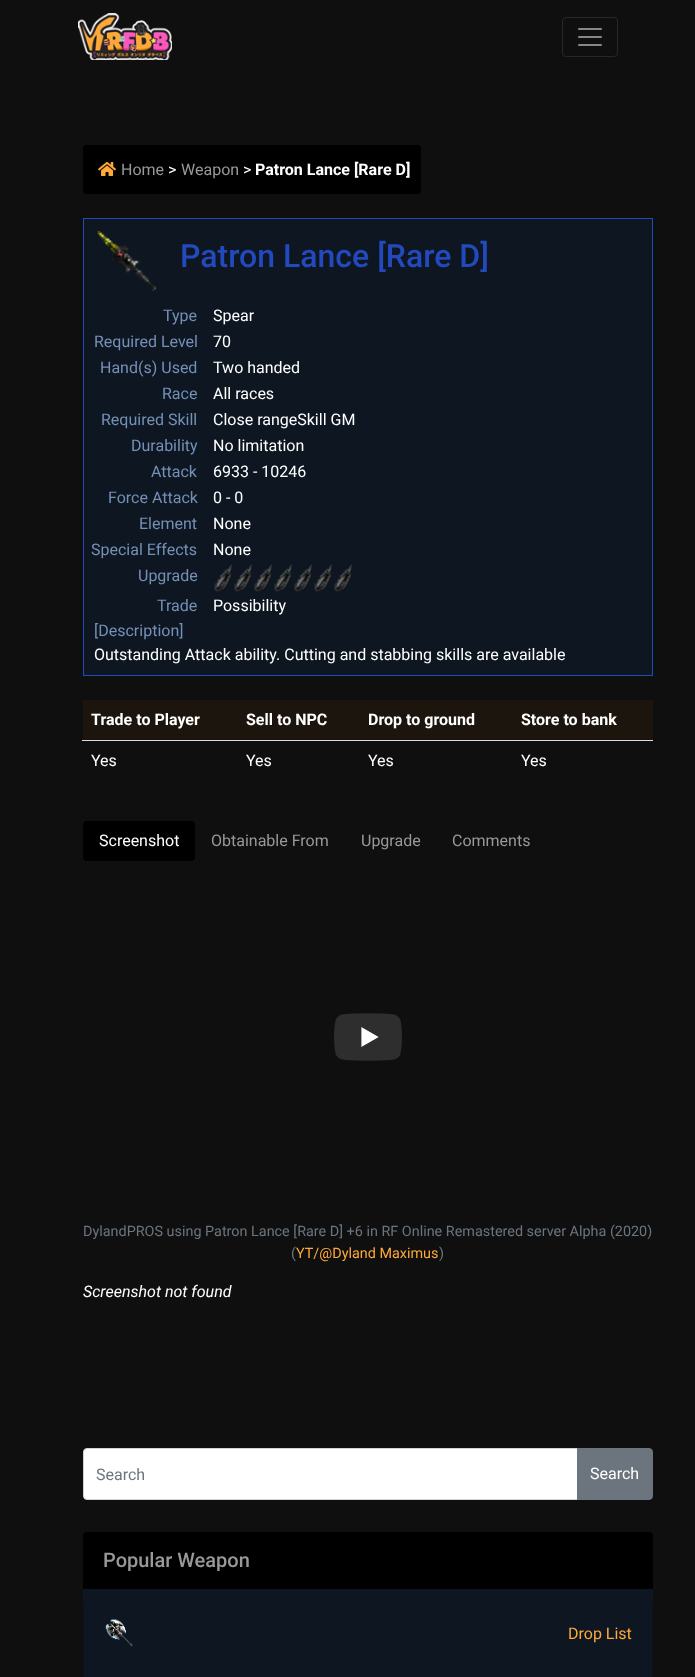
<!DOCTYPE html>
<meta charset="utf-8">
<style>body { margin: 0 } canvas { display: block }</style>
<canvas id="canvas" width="695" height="1677"></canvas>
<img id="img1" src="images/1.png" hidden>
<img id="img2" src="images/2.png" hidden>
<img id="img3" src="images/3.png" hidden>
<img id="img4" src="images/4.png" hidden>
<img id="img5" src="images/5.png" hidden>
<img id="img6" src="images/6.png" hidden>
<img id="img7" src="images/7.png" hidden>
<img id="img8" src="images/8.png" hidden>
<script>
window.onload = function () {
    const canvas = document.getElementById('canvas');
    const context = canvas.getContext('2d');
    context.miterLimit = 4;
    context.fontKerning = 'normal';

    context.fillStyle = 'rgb(15, 15, 15)';
    context.fillRect(0, 0, 695, 1677);
    context.drawImage(document.getElementById('img1'), 78, 13, 94, 47);
    context.beginPath();
    context.roundRect(562.5, 17.5, 55, 39, 3.5);
    context.strokeStyle = 'rgb(39, 39, 39)';
    context.stroke();
    context.drawImage(document.getElementById('img2'), 578, 28, 24, 18);
    context.fillStyle = 'rgb(0, 0, 0)';
    context.beginPath();
    context.roundRect(83, 145, 338, 49, 4);
    context.fill();
    context.drawImage(document.getElementById('img3'), 98, 162, 18, 14);
    context.fillStyle = 'rgb(14, 23, 33)';
    context.fillRect(84, 219, 568, 456);
    context.fillStyle = 'rgb(34, 74, 190)';
    context.fillRect(83, 218, 570, 1);
    context.fillRect(652, 218, 1, 458);
    context.fillRect(83, 218, 1, 85);
    context.drawImage(document.getElementById('img4'), 97, 231, 59, 60);
    context.fillRect(83, 675, 570, 1);
    context.fillRect(83, 303, 1, 373);
    context.drawImage(document.getElementById('img5'), 214, 564, 18, 28);
    context.drawImage(document.getElementById('img5'), 234, 564, 18, 28);
    context.drawImage(document.getElementById('img5'), 254, 564, 18, 28);
    context.drawImage(document.getElementById('img5'), 274, 564, 18, 28);
    context.drawImage(document.getElementById('img6'), 294, 564, 18, 28);
    context.drawImage(document.getElementById('img6'), 314, 564, 18, 28);
    context.drawImage(document.getElementById('img6'), 334, 564, 18, 28);
    context.fillStyle = 'rgb(28, 21, 13)';
    context.fillRect(83, 700, 570, 40);
    context.fillStyle = 'rgb(221, 221, 221)';
    context.fillRect(82, 740, 571, 1);
    context.fillStyle = 'rgb(0, 0, 0)';
    context.beginPath();
    context.roundRect(83, 821, 112, 40, 4);
    context.fill();
    context.drawImage(document.getElementById('img7'), 334, 1013, 68, 48);
    context.fillStyle = 'rgb(255, 255, 255)';
    context.beginPath();
    context.roundRect(83.5, 1448.5, 494, 51, [3.5, 0, 0, 3.5]);
    context.fill();
    context.strokeStyle = 'rgb(206, 212, 218)';
    context.stroke();
    context.fillStyle = 'rgb(108, 117, 125)';
    context.beginPath();
    context.roundRect(577.5, 1448.5, 75, 51, [0, 3.5, 3.5, 0]);
    context.fill();
    context.strokeStyle = 'rgb(108, 117, 125)';
    context.stroke();
    context.fillStyle = 'rgb(0, 0, 0)';
    context.beginPath();
    context.roundRect(83, 1532, 570, 57, [3, 3, 0, 0]);
    context.fill();
    context.fillStyle = 'rgb(14, 23, 33)';
    context.fillRect(83, 1589, 570, 76);
    context.beginPath();
    context.roundRect(83.5, 1601.5, 569, 64, [3.5, 3.5, 0, 0]);
    context.strokeStyle = 'rgb(12, 20, 29)';
    context.stroke();
    context.drawImage(document.getElementById('img8'), 105, 1619, 28, 28);
    context.beginPath();
    context.rect(83.5, 1665.5, 569, 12);
    context.fill();
    context.stroke();
    context.font = '16px Roboto';
    context.fillStyle = 'rgb(153, 153, 153)';
    context.fillText('Home', 121, 175);
    context.fillStyle = 'rgb(255, 255, 255)';
    context.fillText('>', 168, 175);
    context.fillStyle = 'rgb(153, 153, 153)';
    context.fillText('Weapon', 181, 175);
    context.fillStyle = 'rgb(255, 255, 255)';
    context.fillText('>', 243, 175);
    context.font = 'bold 16px Roboto';
    context.fillText('Patron Lance [Rare D]', 255, 175);
    context.font = '500 32px Roboto';
    context.fillStyle = 'rgb(34, 74, 190)';
    context.fillText('Patron Lance [Rare D]', 180, 267);
    context.font = '16px Roboto';
    context.fillStyle = 'rgb(117, 144, 183)';
    context.fillText('Type', 163, 321);
    context.fillStyle = 'rgb(255, 255, 255)';
    context.fillText('Spear', 213, 321);
    context.fillStyle = 'rgb(117, 144, 183)';
    context.fillText('Required Level', 94, 347);
    context.fillStyle = 'rgb(255, 255, 255)';
    context.fillText('70', 213, 347);
    context.fillStyle = 'rgb(117, 144, 183)';
    context.fillText('Hand(s) Used', 100, 373);
    context.fillStyle = 'rgb(255, 255, 255)';
    context.fillText('Two handed', 213, 373);
    context.fillStyle = 'rgb(117, 144, 183)';
    context.fillText('Race', 162, 399);
    context.fillStyle = 'rgb(255, 255, 255)';
    context.fillText('All races', 213, 399);
    context.fillStyle = 'rgb(117, 144, 183)';
    context.fillText('Required Skill', 101, 425);
    context.fillStyle = 'rgb(255, 255, 255)';
    context.fillText('Close rangeSkill GM', 213, 425);
    context.fillStyle = 'rgb(117, 144, 183)';
    context.fillText('Durability', 131, 451);
    context.fillStyle = 'rgb(255, 255, 255)';
    context.fillText('No limitation', 213, 451);
    context.fillStyle = 'rgb(117, 144, 183)';
    context.fillText('Attack', 151, 477);
    context.fillStyle = 'rgb(255, 255, 255)';
    context.fillText('6933 - 10246', 213, 477);
    context.fillStyle = 'rgb(117, 144, 183)';
    context.fillText('Force Attack', 108, 503);
    context.fillStyle = 'rgb(255, 255, 255)';
    context.fillText('0 - 0', 213, 503);
    context.fillStyle = 'rgb(117, 144, 183)';
    context.fillText('Element', 139, 529);
    context.fillStyle = 'rgb(255, 255, 255)';
    context.fillText('None', 213, 529);
    context.fillStyle = 'rgb(117, 144, 183)';
    context.fillText('Special Effects', 91, 555);
    context.fillStyle = 'rgb(255, 255, 255)';
    context.fillText('None', 213, 555);
    context.fillStyle = 'rgb(117, 144, 183)';
    context.fillText('Upgrade', 138, 581);
    context.fillText('Trade', 157, 611);
    context.fillStyle = 'rgb(255, 255, 255)';
    context.fillText('Possibility', 213, 611);
    context.fillStyle = 'rgb(117, 144, 183)';
    context.fillText('[Description]', 94, 636);
    context.fillStyle = 'rgb(255, 255, 255)';
    context.fillText('Outstanding Attack ability. Cutting and stabbing skills are available', 94, 660);
    context.font = 'bold 16px Roboto';
    context.fillText('Trade to Player', 91, 725);
    context.fillText('Sell to NPC', 246, 725);
    context.fillText('Drop to ground', 368, 725);
    context.fillText('Store to bank', 521, 725);
    context.font = '16px Roboto';
    context.fillText('Yes', 91, 766);
    context.fillText('Yes', 246, 766);
    context.fillText('Yes', 368, 766);
    context.fillText('Yes', 521, 766);
    context.fillText('Screenshot', 99, 846);
    context.fillStyle = 'rgb(153, 153, 153)';
    context.fillText('Obtainable From', 211, 846);
    context.fillText('Upgrade', 361, 846);
    context.fillText('Comments', 452, 846);
    context.font = '14.4px Roboto';
    context.fillStyle = 'rgb(108, 117, 125)';
    context.fillText('DylandPROS using Patron Lance [Rare D] +6 in RF Online Remastered server Alpha (2020)', 83, 1236);
    context.fillText('(', 291, 1258);
    context.fillStyle = 'rgb(255, 169, 57)';
    context.fillText('YT/@Dyland Maximus', 296, 1258);
    context.fillStyle = 'rgb(108, 117, 125)';
    context.fillText(')', 439, 1258);
    context.font = 'italic 16px Roboto';
    context.fillStyle = 'rgb(255, 255, 255)';
    context.fillText('Screenshot not found', 83, 1297);
    context.font = '16px Roboto';
    context.fillStyle = 'rgb(108, 117, 125)';
    context.fillText('Search', 96, 1480);
    context.fillStyle = 'rgb(255, 255, 255)';
    context.fillText('Search', 590, 1479);
    context.font = '500 20px Roboto';
    context.fillStyle = 'rgb(153, 153, 153)';
    context.fillText('Popular Weapon', 103, 1567);
    context.font = '16px Roboto';
    context.fillStyle = 'rgb(255, 169, 57)';
    context.fillText('Drop List', 568, 1639);
};
</script>
